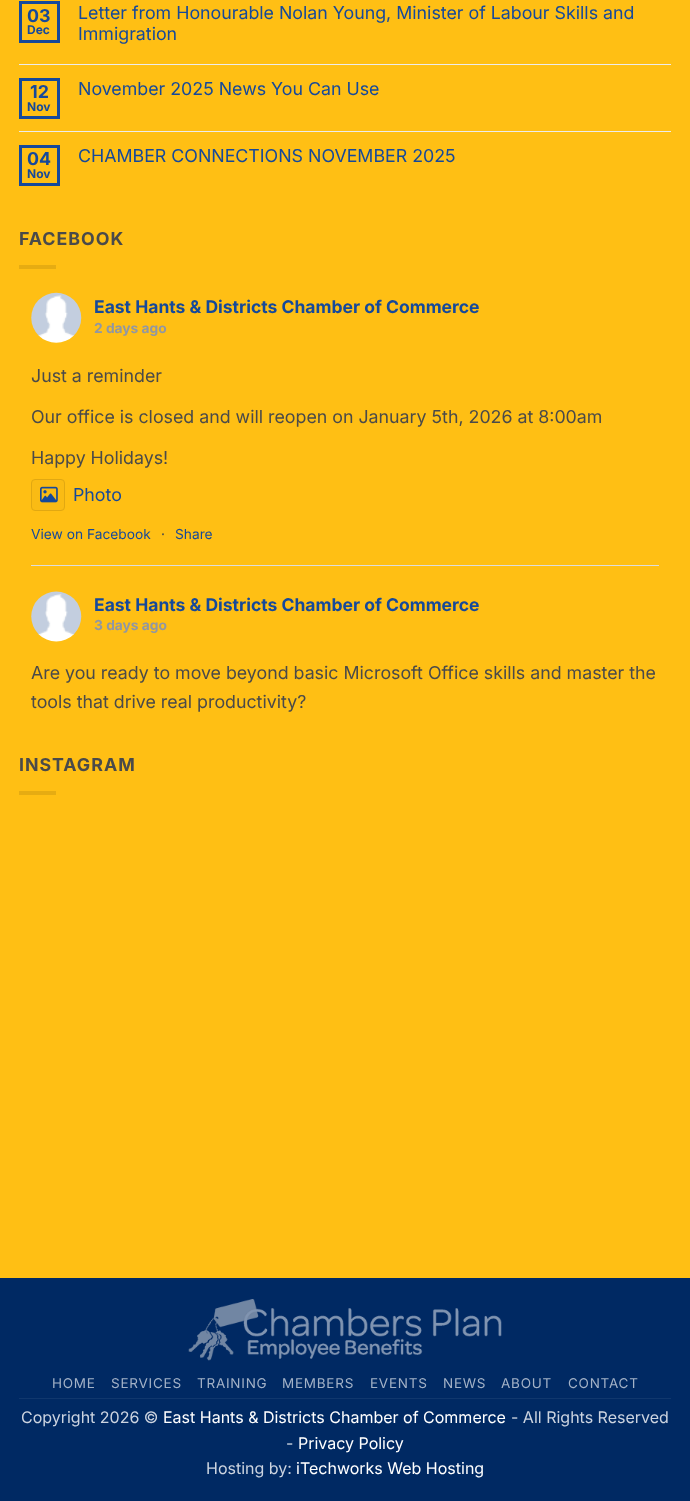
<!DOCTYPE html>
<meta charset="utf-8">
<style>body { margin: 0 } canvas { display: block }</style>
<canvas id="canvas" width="690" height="1501"></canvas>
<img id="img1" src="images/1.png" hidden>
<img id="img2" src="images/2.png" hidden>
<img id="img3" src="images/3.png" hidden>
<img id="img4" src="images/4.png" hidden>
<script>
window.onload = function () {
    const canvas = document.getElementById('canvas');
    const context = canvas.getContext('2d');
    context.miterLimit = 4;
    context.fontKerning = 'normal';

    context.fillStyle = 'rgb(255, 191, 20)';
    context.fillRect(0, 0, 690, 1501);
    context.strokeStyle = 'rgb(21, 73, 155)';
    context.lineWidth = 3;
    context.strokeRect(20.5, 2.5, 38, 39);
    context.fillStyle = 'rgb(236, 236, 236)';
    context.fillRect(19, 64, 652, 1);
    context.strokeRect(20.5, 79.5, 38, 38);
    context.fillRect(19, 131, 652, 1);
    context.strokeRect(20.5, 146.5, 38, 38);
    context.fillStyle = 'rgb(230, 172, 18)';
    context.fillRect(19, 265, 37, 4);
    context.fillStyle = 'rgb(221, 221, 221)';
    context.fillRect(31, 565, 628, 1);
    context.drawImage(document.getElementById('img1'), 31, 292, 51, 51);
    context.fillStyle = 'rgb(250, 187, 20)';
    context.beginPath();
    context.roundRect(31.5, 479.5, 33, 31, 3.5);
    context.fill();
    context.strokeStyle = 'rgb(225, 168, 18)';
    context.lineWidth = 1;
    context.stroke();
    context.drawImage(document.getElementById('img2'), 40, 486, 18, 17);
    context.drawImage(document.getElementById('img3'), 31, 591, 51, 51);
    context.fillStyle = 'rgb(230, 172, 18)';
    context.fillRect(19, 791, 37, 4);
    context.fillStyle = 'rgb(0, 41, 99)';
    context.fillRect(0, 1278, 690, 223);
    context.drawImage(document.getElementById('img4'), 188, 1299, 314, 62);
    context.fillStyle = 'rgb(16, 55, 109)';
    context.fillRect(19, 1398, 652, 1);
    context.font = 'bold 17.8px Inter';
    context.fillStyle = 'rgb(21, 73, 155)';
    context.fillText('03', 27, 22);
    context.font = 'bold 12px Inter';
    context.fillText('Dec', 27, 34);
    context.font = '17.8px Inter';
    context.fillText('Letter from Honourable Nolan Young, Minister of Labour Skills and', 78, 19);
    context.fillText('Immigration', 78, 40);
    context.font = 'bold 17.8px Inter';
    context.fillText('12', 30, 98);
    context.font = 'bold 12px Inter';
    context.fillText('Nov', 27, 111);
    context.font = '17.8px Inter';
    context.fillText('November 2025 News You Can Use', 78, 95);
    context.font = 'bold 17.8px Inter';
    context.fillText('04', 27, 165);
    context.font = 'bold 12px Inter';
    context.fillText('Nov', 27, 178);
    context.font = '17.8px Inter';
    context.fillText('CHAMBER CONNECTIONS NOVEMBER 2025', 78, 162);
    context.letterSpacing = '1px';
    context.font = 'bold 17.8px Inter';
    context.fillStyle = 'rgb(74, 74, 74)';
    context.fillText('FACEBOOK', 19, 245);
    context.letterSpacing = '0px';
    context.font = 'bold 17.5px Inter';
    context.fillStyle = 'rgb(21, 73, 155)';
    context.fillText('East Hants & Districts Chamber of Commerce', 94, 313);
    context.font = 'bold 13.75px Inter';
    context.fillStyle = 'rgb(145, 151, 163)';
    context.fillText('2 days ago', 94, 333);
    context.font = '17.8px Inter';
    context.fillStyle = 'rgb(74, 74, 74)';
    context.fillText('Just a reminder', 31, 382);
    context.fillText('Our office is closed and will reopen on January 5th, 2026 at 8:00am', 31, 423);
    context.fillText('Happy Holidays!', 31, 464);
    context.fillStyle = 'rgb(21, 73, 155)';
    context.fillText('Photo', 73, 501);
    context.font = '13.75px Inter';
    context.fillText('View on Facebook', 31, 539);
    context.fillStyle = 'rgb(74, 74, 74)';
    context.fillText('·', 161, 539);
    context.fillStyle = 'rgb(21, 73, 155)';
    context.fillText('Share', 175, 539);
    context.font = 'bold 17.5px Inter';
    context.fillText('East Hants & Districts Chamber of Commerce', 94, 611);
    context.font = 'bold 13.75px Inter';
    context.fillStyle = 'rgb(145, 151, 163)';
    context.fillText('3 days ago', 94, 630);
    context.font = '17.8px Inter';
    context.fillStyle = 'rgb(74, 74, 74)';
    context.fillText('Are you ready to move beyond basic Microsoft Office skills and master the', 31, 679);
    context.fillText('tools that drive real productivity?', 31, 708);
    context.letterSpacing = '1px';
    context.font = 'bold 17.8px Inter';
    context.fillText('INSTAGRAM', 19, 771);
    context.letterSpacing = '0.75px';
    context.font = '13.5px Inter';
    context.fillStyle = 'rgb(163, 178, 199)';
    context.fillText('HOME', 52, 1388);
    context.fillText('SERVICES', 111, 1388);
    context.fillText('TRAINING', 197, 1388);
    context.fillText('MEMBERS', 282, 1388);
    context.fillText('EVENTS', 370, 1388);
    context.fillText('NEWS', 443, 1388);
    context.fillText('ABOUT', 501, 1388);
    context.fillText('CONTACT', 568, 1388);
    context.letterSpacing = '0px';
    context.font = '16px Inter';
    context.fillStyle = 'rgb(204, 212, 224)';
    context.fillText('Copyright 2026 ©', 21, 1423);
    context.fillStyle = 'rgb(255, 255, 255)';
    context.fillText('East Hants & Districts Chamber of Commerce', 163, 1423);
    context.fillStyle = 'rgb(204, 212, 224)';
    context.fillText('- All Rights Reserved', 511, 1423);
    context.fillText('-', 286, 1449);
    context.fillStyle = 'rgb(255, 255, 255)';
    context.fillText('Privacy Policy', 298, 1449);
    context.fillStyle = 'rgb(204, 212, 224)';
    context.fillText('Hosting by:', 206, 1474);
    context.fillStyle = 'rgb(255, 255, 255)';
    context.fillText('iTechworks Web Hosting', 296, 1474);
};
</script>
